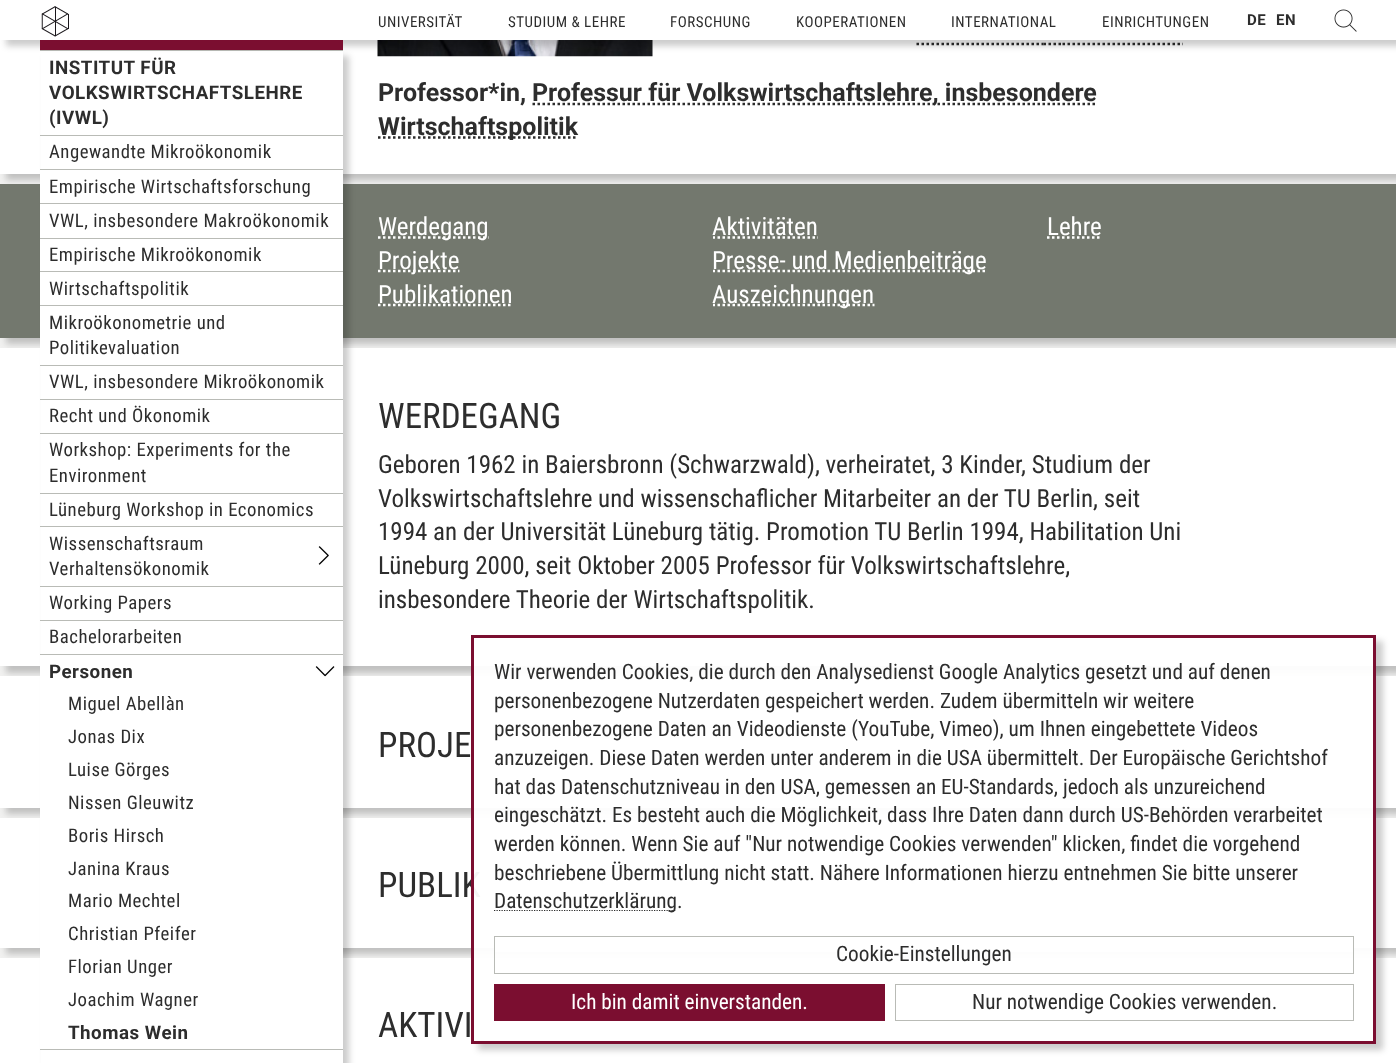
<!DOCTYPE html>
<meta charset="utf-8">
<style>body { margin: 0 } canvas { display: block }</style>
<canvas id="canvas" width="1396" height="1063"></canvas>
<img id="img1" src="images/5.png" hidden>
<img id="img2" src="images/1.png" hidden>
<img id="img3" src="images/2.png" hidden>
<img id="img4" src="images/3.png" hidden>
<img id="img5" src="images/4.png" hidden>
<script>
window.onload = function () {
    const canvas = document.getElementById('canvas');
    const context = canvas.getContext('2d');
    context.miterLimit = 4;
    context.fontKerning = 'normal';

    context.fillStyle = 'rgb(241, 241, 240)';
    context.fillRect(0, 0, 1396, 1063);
    context.fillStyle = 'rgba(0, 0, 0, 0.2)';
    context.filter = 'blur(3px)';
    context.beginPath();
    context.rect(6, -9, 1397, 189);
    context.fill();
    context.filter = 'none';
    context.fillStyle = 'rgb(255, 255, 255)';
    context.fillRect(0, 40, 1396, 134);
    context.fillStyle = 'rgba(0, 0, 0, 0.2)';
    context.filter = 'blur(3px)';
    context.beginPath();
    context.rect(6, 190, 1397, 154);
    context.fill();
    context.filter = 'none';
    context.fillStyle = 'rgb(115, 120, 110)';
    context.fillRect(0, 184, 1396, 154);
    context.fillStyle = 'rgba(0, 0, 0, 0.2)';
    context.filter = 'blur(3px)';
    context.beginPath();
    context.rect(6, 354, 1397, 319);
    context.fill();
    context.filter = 'none';
    context.fillStyle = 'rgb(255, 255, 255)';
    context.fillRect(0, 348, 1396, 318);
    context.fillStyle = 'rgba(0, 0, 0, 0.2)';
    context.filter = 'blur(3px)';
    context.beginPath();
    context.rect(6, 683, 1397, 131);
    context.fill();
    context.filter = 'none';
    context.fillStyle = 'rgb(255, 255, 255)';
    context.fillRect(0, 676, 1396, 132);
    context.fillStyle = 'rgba(0, 0, 0, 0.2)';
    context.filter = 'blur(3px)';
    context.beginPath();
    context.rect(6, 824, 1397, 130);
    context.fill();
    context.filter = 'none';
    context.fillStyle = 'rgb(255, 255, 255)';
    context.fillRect(0, 818, 1396, 130);
    context.fillRect(0, 958, 1396, 105);
    context.fillStyle = 'rgba(0, 0, 0, 0.2)';
    context.filter = 'blur(3px)';
    context.beginPath();
    context.rect(46, 56, 303, 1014);
    context.fill();
    context.filter = 'none';
    context.fillStyle = 'rgb(255, 255, 255)';
    context.fillRect(41, 51, 302, 84);
    context.fillStyle = 'rgb(185, 187, 182)';
    context.fillRect(40, 50, 303, 1);
    context.drawImage(document.getElementById('img1'), 377, 40, 276, 17);
    context.beginPath();
    context.moveTo(916.5, 44);
    context.lineTo(1043.5, 44);
    context.strokeStyle = 'rgb(45, 45, 45)';
    context.lineWidth = 2.5;
    context.setLineDash([2.5, 2.5]);
    context.stroke();
    context.beginPath();
    context.moveTo(1043.5, 44);
    context.lineTo(1062.5, 44);
    context.stroke();
    context.beginPath();
    context.moveTo(1062.5, 44);
    context.lineTo(1183, 44);
    context.stroke();
    context.fillStyle = 'rgba(0, 0, 0, 0.2)';
    context.filter = 'blur(3px)';
    context.beginPath();
    context.rect(6, 6, 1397, 40);
    context.fill();
    context.filter = 'none';
    context.fillStyle = 'rgb(255, 255, 255)';
    context.fillRect(0, 0, 1396, 40);
    context.drawImage(document.getElementById('img2'), 41, 6, 28, 31);
    context.fillStyle = 'rgb(123, 14, 48)';
    context.fillRect(40, 40, 303, 10);
    context.drawImage(document.getElementById('img3'), 1334, 9, 23, 23);
    context.fillStyle = 'rgb(255, 255, 255)';
    context.fillRect(41, 136, 302, 33);
    context.fillStyle = 'rgb(185, 187, 182)';
    context.fillRect(40, 135, 303, 1);
    context.fillStyle = 'rgb(255, 255, 255)';
    context.fillRect(40, 170, 303, 33);
    context.fillStyle = 'rgb(185, 187, 182)';
    context.fillRect(40, 169, 303, 1);
    context.fillStyle = 'rgb(255, 255, 255)';
    context.fillRect(40, 204, 303, 34);
    context.fillStyle = 'rgb(185, 187, 182)';
    context.fillRect(40, 203, 303, 1);
    context.fillStyle = 'rgb(255, 255, 255)';
    context.fillRect(40, 239, 303, 32);
    context.fillStyle = 'rgb(185, 187, 182)';
    context.fillRect(40, 238, 303, 1);
    context.fillStyle = 'rgb(255, 255, 255)';
    context.fillRect(40, 272, 303, 33);
    context.fillStyle = 'rgb(185, 187, 182)';
    context.fillRect(40, 271, 303, 1);
    context.fillStyle = 'rgb(255, 255, 255)';
    context.fillRect(40, 306, 303, 59);
    context.fillStyle = 'rgb(185, 187, 182)';
    context.fillRect(40, 305, 303, 1);
    context.fillStyle = 'rgb(255, 255, 255)';
    context.fillRect(41, 366, 302, 33);
    context.fillStyle = 'rgb(185, 187, 182)';
    context.fillRect(40, 365, 303, 1);
    context.fillStyle = 'rgb(255, 255, 255)';
    context.fillRect(41, 400, 302, 33);
    context.fillStyle = 'rgb(185, 187, 182)';
    context.fillRect(40, 399, 303, 1);
    context.fillStyle = 'rgb(255, 255, 255)';
    context.fillRect(41, 434, 302, 59);
    context.fillStyle = 'rgb(185, 187, 182)';
    context.fillRect(40, 433, 303, 1);
    context.fillStyle = 'rgb(255, 255, 255)';
    context.fillRect(41, 494, 302, 32);
    context.fillStyle = 'rgb(185, 187, 182)';
    context.fillRect(40, 493, 303, 1);
    context.fillStyle = 'rgb(255, 255, 255)';
    context.fillRect(41, 527, 302, 59);
    context.fillStyle = 'rgb(185, 187, 182)';
    context.fillRect(40, 526, 303, 1);
    context.drawImage(document.getElementById('img4'), 318, 546, 11, 19);
    context.fillStyle = 'rgb(255, 255, 255)';
    context.fillRect(41, 587, 302, 33);
    context.fillStyle = 'rgb(185, 187, 182)';
    context.fillRect(40, 586, 303, 1);
    context.fillStyle = 'rgb(255, 255, 255)';
    context.fillRect(41, 621, 302, 33);
    context.fillStyle = 'rgb(185, 187, 182)';
    context.fillRect(40, 620, 303, 1);
    context.fillStyle = 'rgb(255, 255, 255)';
    context.fillRect(40, 655, 303, 394);
    context.fillStyle = 'rgb(185, 187, 182)';
    context.fillRect(40, 654, 303, 1);
    context.drawImage(document.getElementById('img5'), 315, 666, 20, 11);
    context.fillStyle = 'rgb(255, 255, 255)';
    context.fillRect(41, 1050, 302, 13);
    context.fillStyle = 'rgb(185, 187, 182)';
    context.fillRect(40, 1049, 303, 1);
    context.beginPath();
    context.moveTo(532.5, 104);
    context.lineTo(1097, 104);
    context.stroke();
    context.beginPath();
    context.moveTo(378, 137.5);
    context.lineTo(578, 137.5);
    context.stroke();
    context.beginPath();
    context.moveTo(378, 237.5);
    context.lineTo(488.5, 237.5);
    context.strokeStyle = 'rgb(255, 255, 255)';
    context.stroke();
    context.save();
    context.beginPath();
    context.rect(713, 210, 308, 34);
    context.clip();
    context.beginPath();
    context.moveTo(712.5, 237.5);
    context.lineTo(818, 237.5);
    context.stroke();
    context.restore();
    context.beginPath();
    context.moveTo(1047, 237.5);
    context.lineTo(1101.5, 237.5);
    context.stroke();
    context.beginPath();
    context.moveTo(378, 271);
    context.lineTo(459.5, 271);
    context.stroke();
    context.save();
    context.beginPath();
    context.rect(713, 244, 308, 34);
    context.clip();
    context.beginPath();
    context.moveTo(712.5, 271);
    context.lineTo(987, 271);
    context.stroke();
    context.restore();
    context.beginPath();
    context.moveTo(378, 305);
    context.lineTo(512.5, 305);
    context.stroke();
    context.save();
    context.beginPath();
    context.rect(713, 278, 308, 33);
    context.clip();
    context.beginPath();
    context.moveTo(712.5, 305);
    context.lineTo(874.5, 305);
    context.stroke();
    context.restore();
    context.save();
    context.beginPath();
    context.moveTo(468, 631);
    context.lineTo(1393, 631);
    context.lineTo(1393, 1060);
    context.lineTo(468, 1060);
    context.closePath();
    context.moveTo(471, 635);
    context.lineTo(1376, 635);
    context.lineTo(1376, 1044);
    context.lineTo(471, 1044);
    context.closePath();
    context.clip('evenodd');
    context.fillStyle = 'rgba(0, 0, 0, 0.2)';
    context.filter = 'blur(3px)';
    context.beginPath();
    context.rect(478, 641, 905, 409);
    context.fill();
    context.filter = 'none';
    context.restore();
    context.letterSpacing = '0.5px';
    context.font = '15px Roboto Condensed';
    context.fillStyle = 'rgb(45, 45, 45)';
    context.fillText('UNIVERSITÄT', 378, 27);
    context.fillText('STUDIUM & LEHRE', 508, 27);
    context.fillText('FORSCHUNG', 670, 27);
    context.fillText('KOOPERATIONEN', 796, 27);
    context.fillText('INTERNATIONAL', 951, 27);
    context.fillText('EINRICHTUNGEN', 1102, 27);
    context.font = 'bold 15px Roboto';
    context.fillText('DE', 1247, 25);
    context.fillText('EN', 1276, 25);
    context.font = 'bold 18.75px Roboto';
    context.fillText('INSTITUT FÜR', 49, 74);
    context.fillText('VOLKSWIRTSCHAFTSLEHRE', 49, 99);
    context.fillText('(IVWL)', 49, 124);
    context.font = '18.75px Roboto Condensed';
    context.fillText('Angewandte Mikroökonomik', 49, 158);
    context.fillText('Empirische Wirtschaftsforschung', 49, 193);
    context.fillText('VWL, insbesondere Makroökonomik', 49, 227);
    context.fillText('Empirische Mikroökonomik', 49, 261);
    context.fillText('Wirtschaftspolitik', 49, 295);
    context.fillText('Mikroökonometrie und', 49, 329);
    context.fillText('Politikevaluation', 49, 354);
    context.fillText('VWL, insbesondere Mikroökonomik', 49, 388);
    context.fillText('Recht und Ökonomik', 49, 422);
    context.fillText('Workshop: Experiments for the', 49, 456);
    context.fillText('Environment', 49, 482);
    context.fillText('Lüneburg Workshop in Economics', 49, 516);
    context.fillText('Wissenschaftsraum', 49, 550);
    context.fillText('Verhaltensökonomik', 49, 575);
    context.fillText('Working Papers', 49, 609);
    context.fillText('Bachelorarbeiten', 49, 643);
    context.font = 'bold 18.75px Roboto';
    context.fillText('Personen', 49, 678);
    context.font = '18.75px Roboto Condensed';
    context.fillText('Miguel Abellàn', 68, 710);
    context.fillText('Jonas Dix', 68, 743);
    context.fillText('Luise Görges', 68, 776);
    context.fillText('Nissen Gleuwitz', 68, 809);
    context.fillText('Boris Hirsch', 68, 842);
    context.fillText('Janina Kraus', 68, 875);
    context.fillText('Mario Mechtel', 68, 907);
    context.fillText('Christian Pfeifer', 68, 940);
    context.fillText('Florian Unger', 68, 973);
    context.fillText('Joachim Wagner', 68, 1006);
    context.font = 'bold 18.75px Roboto';
    context.fillText('Thomas Wein', 68, 1039);
    context.letterSpacing = '0px';
    context.font = 'bold 25px Roboto';
    context.fillText('Professor*in,', 378, 101);
    context.fillText('Professur für Volkswirtschaftslehre, insbesondere', 532, 101);
    context.fillText('Wirtschaftspolitik', 378, 135);
    context.font = '25px Roboto Condensed';
    context.fillStyle = 'rgb(255, 255, 255)';
    context.fillText('Werdegang', 378, 235);
    context.fillText('Aktivitäten', 712, 235);
    context.fillText('Lehre', 1047, 235);
    context.fillText('Projekte', 378, 269);
    context.fillText('Presse- und Medienbeiträge', 712, 269);
    context.fillText('Publikationen', 378, 303);
    context.fillText('Auszeichnungen', 712, 303);
    context.font = '35px Roboto Condensed';
    context.fillStyle = 'rgb(45, 45, 45)';
    context.fillText('WERDEGANG', 378, 428);
    context.font = '25px Roboto Condensed';
    context.fillText('Geboren 1962 in Baiersbronn (Schwarzwald), verheiratet, 3 Kinder, Studium der', 378, 473);
    context.fillText('Volkswirtschaftslehre und wissenschaflicher Mitarbeiter an der TU Berlin, seit', 378, 507);
    context.fillText('1994 an der Universität Lüneburg tätig. Promotion TU Berlin 1994, Habilitation Uni', 378, 540);
    context.fillText('Lüneburg 2000, seit Oktober 2005 Professor für Volkswirtschaftslehre,', 378, 574);
    context.fillText('insbesondere Theorie der Wirtschaftspolitik.', 378, 608);
    context.font = '35px Roboto Condensed';
    context.fillText('PROJE', 378, 757);
    context.fillText('PUBLIK', 378, 897);
    context.fillText('AKTIVI', 378, 1037);
    context.fillStyle = 'rgba(255, 255, 255, 0.95)';
    context.fillRect(474, 666, 899, 292);
    context.strokeStyle = 'rgb(123, 14, 48)';
    context.lineWidth = 3;
    context.setLineDash([]);
    context.strokeRect(472.5, 636.5, 902, 406);
    context.font = '21.25px Roboto Condensed';
    context.fillStyle = 'rgb(45, 45, 45)';
    context.fillText('Wir verwenden Cookies, die durch den Analysedienst Google Analytics gesetzt und auf denen', 494, 679);
    context.fillText('personenbezogene Nutzerdaten gespeichert werden. Zudem übermitteln wir weitere', 494, 708);
    context.fillText('personenbezogene Daten an Videodienste (YouTube, Vimeo), um Ihnen eingebettete Videos', 494, 736);
    context.fillText('anzuzeigen. Diese Daten werden unter anderem in die USA übermittelt. Der Europäische Gerichtshof', 494, 765);
    context.fillText('hat das Datenschutzniveau in den USA, gemessen an EU-Standards, jedoch als unzureichend', 494, 794);
    context.fillText('eingeschätzt. Es besteht auch die Möglichkeit, dass Ihre Daten dann durch US-Behörden verarbeitet', 494, 822);
    context.fillText('werden können. Wenn Sie auf "Nur notwendige Cookies verwenden" klicken, findet die vorgehend', 494, 851);
    context.fillText('beschriebene Übermittlung nicht statt. Nähere Informationen hierzu entnehmen Sie bitte unserer', 494, 880);
    context.beginPath();
    context.moveTo(494, 910.5);
    context.lineTo(676.5, 910.5);
    context.strokeStyle = 'rgb(45, 45, 45)';
    context.lineWidth = 1.2;
    context.setLineDash([1.25, 1.25]);
    context.stroke();
    context.fillText('Datenschutzerklärung.', 494, 908);
    context.fillStyle = 'rgb(255, 255, 255)';
    context.fillRect(495, 948, 858, 4);
    context.strokeStyle = 'rgb(185, 187, 182)';
    context.lineWidth = 1;
    context.setLineDash([]);
    context.strokeRect(494.5, 936.5, 859, 37);
    context.fillStyle = 'rgb(45, 45, 45)';
    context.fillText('Cookie-Einstellungen', 836, 961);
    context.fillStyle = 'rgb(123, 14, 48)';
    context.fillRect(494, 984, 391, 37);
    context.fillStyle = 'rgb(255, 255, 255)';
    context.fillText('Ich bin damit einverstanden.', 571, 1009);
    context.strokeRect(895.5, 984.5, 458, 36);
    context.fillStyle = 'rgb(45, 45, 45)';
    context.fillText('Nur notwendige Cookies verwenden.', 972, 1009);
};
</script>
